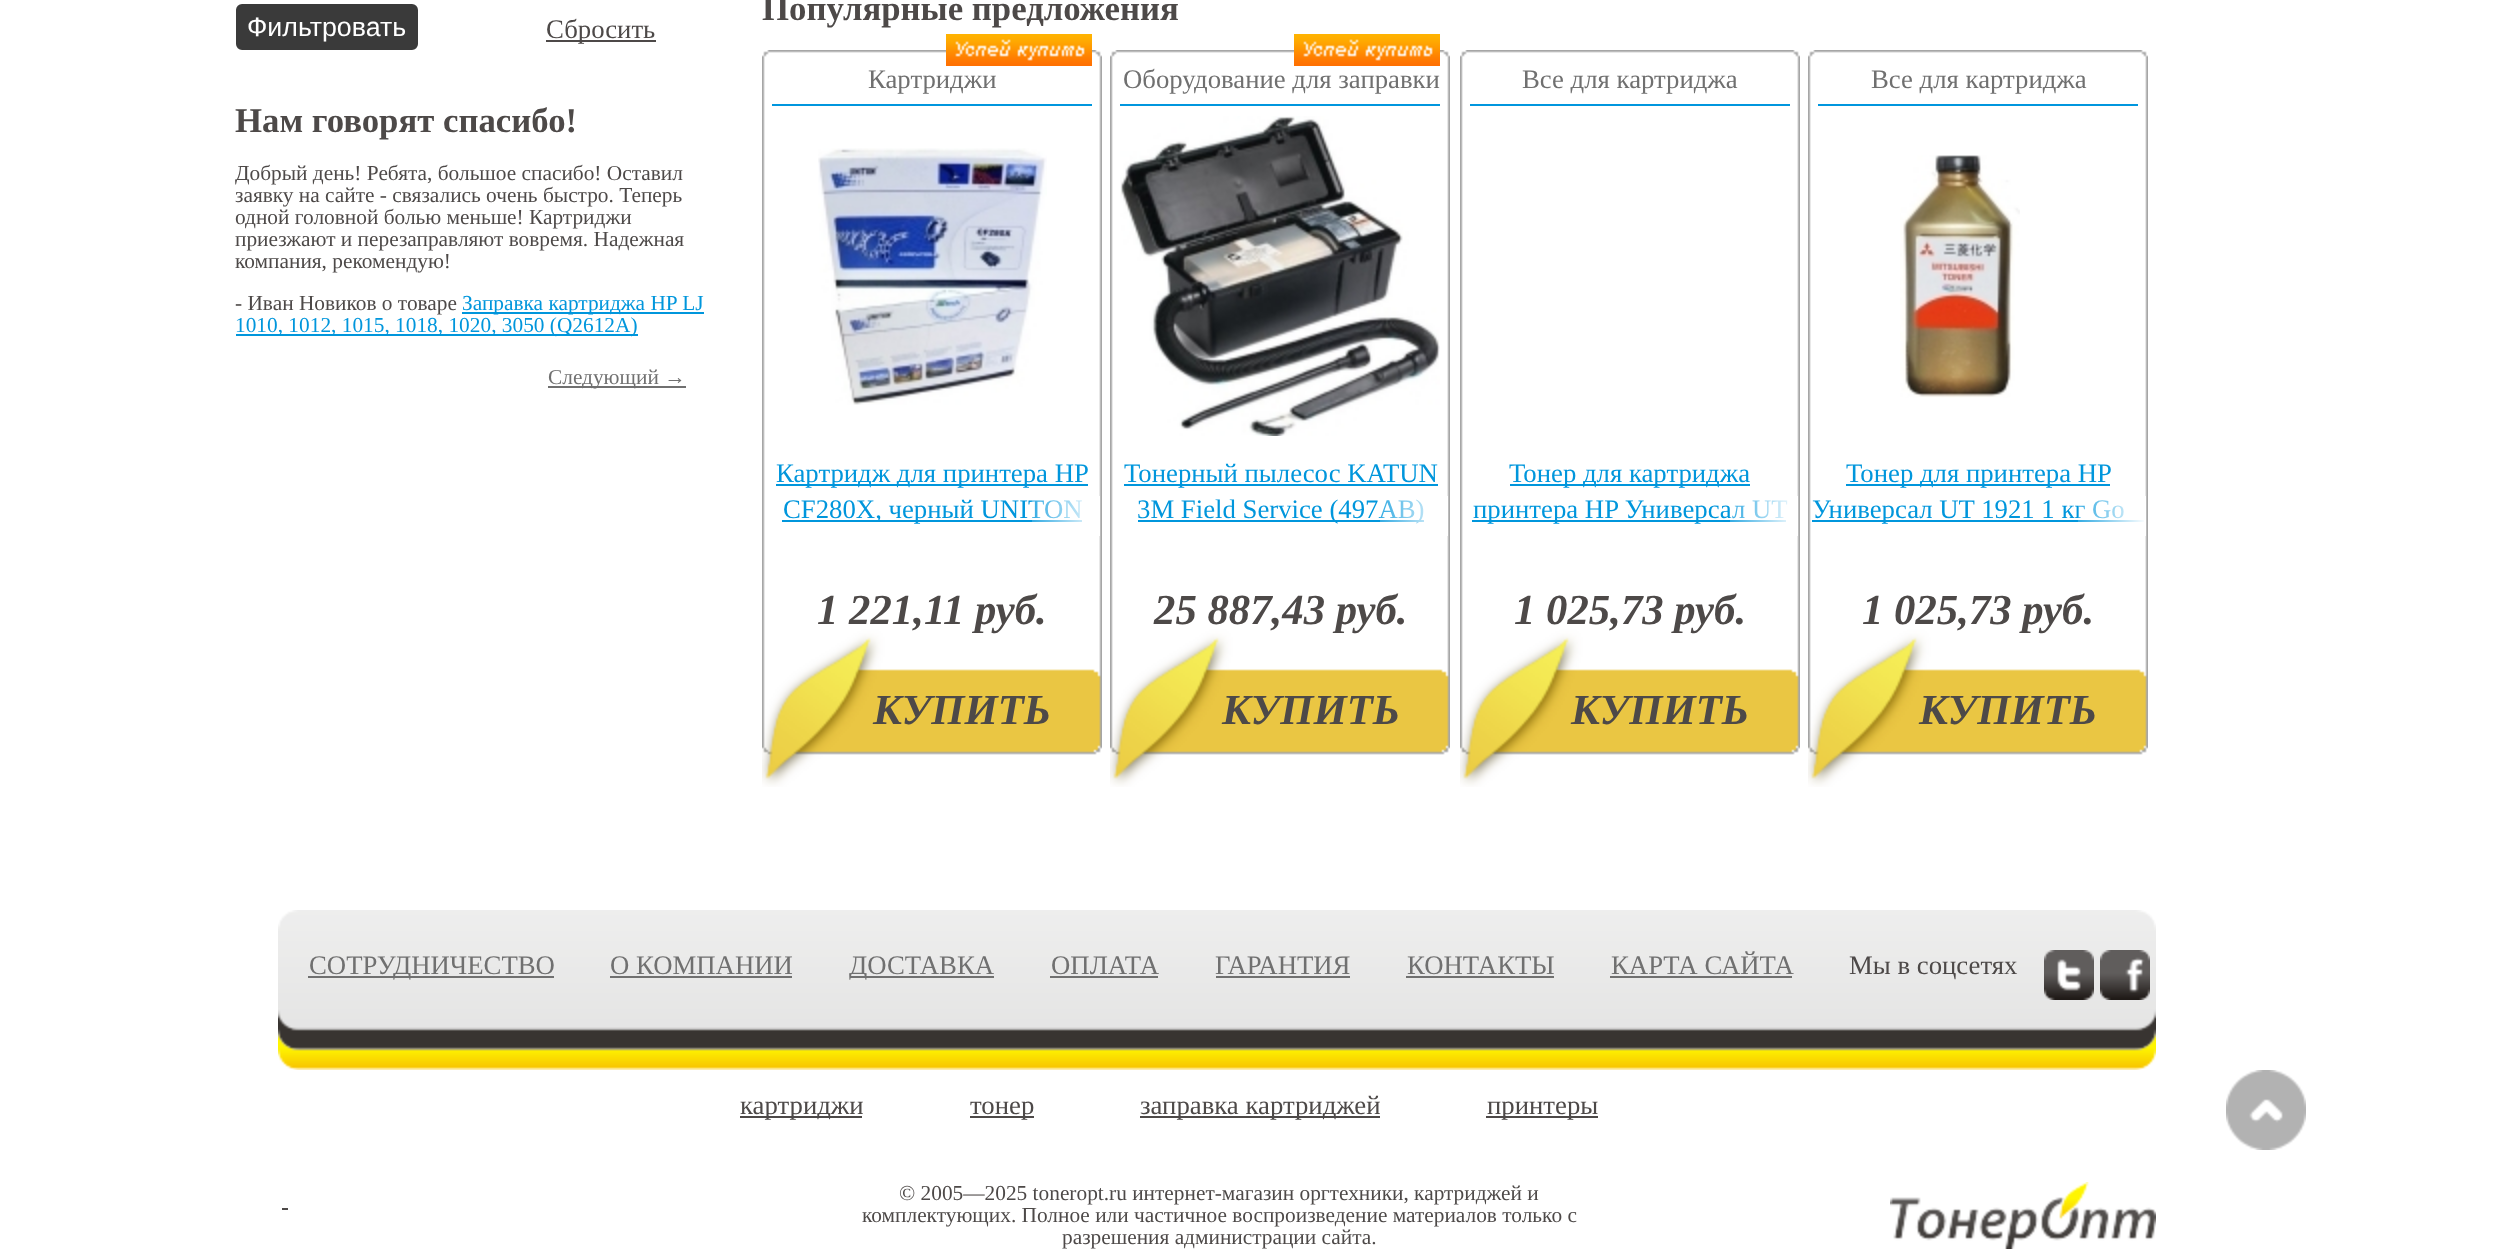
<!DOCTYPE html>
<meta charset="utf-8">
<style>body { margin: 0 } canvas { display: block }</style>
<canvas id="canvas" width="2505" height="1249"></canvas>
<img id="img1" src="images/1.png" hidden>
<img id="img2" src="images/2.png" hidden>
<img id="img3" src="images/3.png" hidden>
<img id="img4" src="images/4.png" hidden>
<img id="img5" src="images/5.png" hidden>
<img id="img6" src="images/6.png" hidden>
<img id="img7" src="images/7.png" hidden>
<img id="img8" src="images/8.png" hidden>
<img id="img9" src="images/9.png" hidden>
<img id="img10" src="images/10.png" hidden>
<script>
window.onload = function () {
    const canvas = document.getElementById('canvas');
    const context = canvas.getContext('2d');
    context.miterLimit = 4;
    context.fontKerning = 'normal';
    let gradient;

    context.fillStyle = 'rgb(255, 255, 255)';
    context.fillRect(0, 0, 2505, 1249);
    context.fillStyle = 'rgb(58, 58, 58)';
    context.beginPath();
    context.roundRect(237, 5, 180, 44, 5);
    context.fill();
    context.strokeStyle = 'rgb(58, 58, 58)';
    context.lineWidth = 2;
    context.stroke();
    context.fillStyle = 'rgb(77, 73, 72)';
    context.fillRect(546, 40, 110, 2);
    context.fillStyle = 'rgb(0, 150, 220)';
    context.fillRect(462, 312, 242, 2);
    context.fillRect(236, 334, 402, 2);
    context.fillStyle = 'rgb(112, 112, 112)';
    context.fillRect(548, 386, 138, 2);
    context.drawImage(document.getElementById('img1'), 762, 50, 340, 737);
    context.drawImage(document.getElementById('img2'), 946, 34, 146, 32);
    context.fillStyle = 'rgb(0, 150, 222)';
    context.fillRect(772, 104, 320, 2);
    context.drawImage(document.getElementById('img3'), 818, 148, 229, 257);
    context.fillStyle = 'rgb(0, 150, 220)';
    context.fillRect(776, 484, 312, 2);
    context.fillRect(782, 520, 300, 2);
    context.drawImage(document.getElementById('img1'), 1110, 50, 340, 737);
    context.drawImage(document.getElementById('img2'), 1294, 34, 146, 32);
    context.fillStyle = 'rgb(0, 150, 222)';
    context.fillRect(1120, 104, 320, 2);
    context.drawImage(document.getElementById('img4'), 1120, 116, 320, 320);
    context.fillStyle = 'rgb(0, 150, 220)';
    context.fillRect(1124, 484, 314, 2);
    context.fillRect(1138, 520, 286, 2);
    context.drawImage(document.getElementById('img1'), 1460, 50, 340, 737);
    context.fillStyle = 'rgb(0, 150, 222)';
    context.fillRect(1470, 104, 320, 2);
    context.fillStyle = 'rgb(0, 150, 220)';
    context.fillRect(1510, 484, 240, 2);
    context.fillRect(1472, 520, 314, 2);
    context.drawImage(document.getElementById('img1'), 1808, 50, 340, 737);
    context.fillStyle = 'rgb(0, 150, 222)';
    context.fillRect(1818, 104, 320, 2);
    context.drawImage(document.getElementById('img5'), 1900, 155, 120, 243);
    context.fillStyle = 'rgb(0, 150, 220)';
    context.fillRect(1846, 484, 264, 2);
    context.fillRect(1812, 520, 332, 2);
    context.drawImage(document.getElementById('img6'), 278, 910, 1878, 160);
    context.fillStyle = 'rgb(112, 112, 112)';
    context.fillRect(308, 976, 246, 2);
    context.fillRect(610, 976, 182, 2);
    context.fillRect(850, 976, 144, 2);
    context.fillRect(1050, 976, 108, 2);
    context.fillRect(1216, 976, 134, 2);
    context.fillRect(1406, 976, 148, 2);
    context.fillRect(1610, 976, 182, 2);
    context.drawImage(document.getElementById('img7'), 2044, 950, 50, 50);
    context.drawImage(document.getElementById('img8'), 2100, 950, 50, 50);
    context.fillStyle = 'rgb(77, 73, 72)';
    context.fillRect(740, 1116, 122, 2);
    context.fillRect(970, 1116, 64, 2);
    context.fillRect(1140, 1116, 240, 2);
    context.fillRect(1486, 1116, 112, 2);
    context.drawImage(document.getElementById('img9'), 2226, 1070, 80, 80);
    context.fillRect(282, 1208, 6, 2);
    context.drawImage(document.getElementById('img10'), 1890, 1182, 266, 67);
    context.font = '26.75px Liberation Sans';
    context.fillStyle = 'rgb(255, 255, 255)';
    context.fillText('Фильтровать', 247, 36);
    context.font = '26.75px Liberation Serif';
    context.fillStyle = 'rgb(77, 73, 72)';
    context.fillText('Сбросить', 546, 38);
    context.font = 'bold 34.75px Liberation Serif';
    context.fillText('Нам говорят спасибо!', 235, 132);
    context.font = '21.35px Liberation Serif';
    context.fillText('Добрый день! Ребята, большое спасибо! Оставил', 235, 180);
    context.fillText('заявку на сайте - связались очень быстро. Теперь', 235, 202);
    context.fillText('одной головной болью меньше! Картриджи', 235, 224);
    context.fillText('приезжают и перезаправляют вовремя. Надежная', 235, 246);
    context.fillText('компания, рекомендую!', 235, 268);
    context.fillText('- Иван Новиков о товаре', 235, 310);
    context.fillStyle = 'rgb(0, 150, 220)';
    context.fillText('Заправка картриджа HP LJ', 462, 310);
    context.fillText('1010, 1012, 1015, 1018, 1020, 3050 (Q2612A)', 235, 332);
    context.fillStyle = 'rgb(112, 112, 112)';
    context.fillText('Следующий →', 548, 384);
    context.font = 'bold 34.75px Liberation Serif';
    context.fillStyle = 'rgb(77, 73, 72)';
    context.fillText('Популярные предложения', 762, 20);
    context.font = '26.75px Liberation Serif';
    context.fillStyle = 'rgb(112, 112, 112)';
    context.fillText('Картриджи', 868, 88);
    context.fillStyle = 'rgb(0, 150, 220)';
    context.fillText('Картридж для принтера HP', 776, 482);
    context.fillText('CF280X, черный UNITON', 783, 518);
    gradient = context.createLinearGradient(1032, 516, 1100, 516);
    gradient.addColorStop(0, 'rgba(255, 255, 255, 0.2)');
    gradient.addColorStop(1, 'rgb(255, 255, 255)');
    context.fillStyle = gradient;
    context.fillRect(1032, 496, 68, 40);
    context.font = 'italic bold 42.75px Liberation Serif';
    context.fillStyle = 'rgb(77, 73, 72)';
    context.fillText('1 221,11 руб.', 817, 624);
    context.fillText('КУПИТЬ', 873, 724);
    context.font = '26.75px Liberation Serif';
    context.fillStyle = 'rgb(112, 112, 112)';
    context.fillText('Оборудование для заправки', 1123, 88);
    context.fillStyle = 'rgb(0, 150, 220)';
    context.fillText('Тонерный пылесос KATUN', 1124, 482);
    context.fillText('3M Field Service (497AB)', 1137, 518);
    gradient = context.createLinearGradient(1380, 516, 1448, 516);
    gradient.addColorStop(0, 'rgba(255, 255, 255, 0.2)');
    gradient.addColorStop(1, 'rgb(255, 255, 255)');
    context.fillStyle = gradient;
    context.fillRect(1380, 496, 68, 40);
    context.font = 'italic bold 42.75px Liberation Serif';
    context.fillStyle = 'rgb(77, 73, 72)';
    context.fillText('25 887,43 руб.', 1154, 624);
    context.fillText('КУПИТЬ', 1222, 724);
    context.font = '26.75px Liberation Serif';
    context.fillStyle = 'rgb(112, 112, 112)';
    context.fillText('Все для картриджа', 1522, 88);
    context.fillStyle = 'rgb(0, 150, 220)';
    context.fillText('Тонер для картриджа', 1509, 482);
    context.fillText('принтера HP Универсал UT', 1473, 518);
    gradient = context.createLinearGradient(1730, 516, 1798, 516);
    gradient.addColorStop(0, 'rgba(255, 255, 255, 0.2)');
    gradient.addColorStop(1, 'rgb(255, 255, 255)');
    context.fillStyle = gradient;
    context.fillRect(1730, 496, 68, 40);
    context.font = 'italic bold 42.75px Liberation Serif';
    context.fillStyle = 'rgb(77, 73, 72)';
    context.fillText('1 025,73 руб.', 1514, 624);
    context.fillText('КУПИТЬ', 1571, 724);
    context.font = '26.75px Liberation Serif';
    context.fillStyle = 'rgb(112, 112, 112)';
    context.fillText('Все для картриджа', 1871, 88);
    context.fillStyle = 'rgb(0, 150, 220)';
    context.fillText('Тонер для принтера HP', 1846, 482);
    context.fillText('Универсал UT 1921 1 кг Go', 1812, 518);
    gradient = context.createLinearGradient(2078, 516, 2146, 516);
    gradient.addColorStop(0, 'rgba(255, 255, 255, 0.2)');
    gradient.addColorStop(1, 'rgb(255, 255, 255)');
    context.fillStyle = gradient;
    context.fillRect(2078, 496, 68, 40);
    context.font = 'italic bold 42.75px Liberation Serif';
    context.fillStyle = 'rgb(77, 73, 72)';
    context.fillText('1 025,73 руб.', 1862, 624);
    context.fillText('КУПИТЬ', 1919, 724);
    context.font = '26.75px Liberation Serif';
    context.fillStyle = 'rgb(112, 112, 112)';
    context.fillText('СОТРУДНИЧЕСТВО', 309, 974);
    context.fillText('О КОМПАНИИ', 610, 974);
    context.fillText('ДОСТАВКА', 849, 974);
    context.fillText('ОПЛАТА', 1051, 974);
    context.fillText('ГАРАНТИЯ', 1215, 974);
    context.fillText('КОНТАКТЫ', 1407, 974);
    context.fillText('КАРТА САЙТА', 1611, 974);
    context.fillStyle = 'rgb(77, 73, 72)';
    context.fillText('Мы в соцсетях', 1849, 974);
    context.fillText('картриджи', 740, 1114);
    context.fillText('тонер', 970, 1114);
    context.fillText('заправка картриджей', 1140, 1114);
    context.fillText('принтеры', 1487, 1114);
    context.font = '21.35px Liberation Serif';
    context.fillText('© 2005—2025 toneropt.ru интернет-магазин оргтехники, картриджей и', 899, 1200);
    context.fillText('комплектующих. Полное или частичное воспроизведение материалов только с', 862, 1222);
    context.fillText('разрешения администрации сайта.', 1062, 1244);
};
</script>
